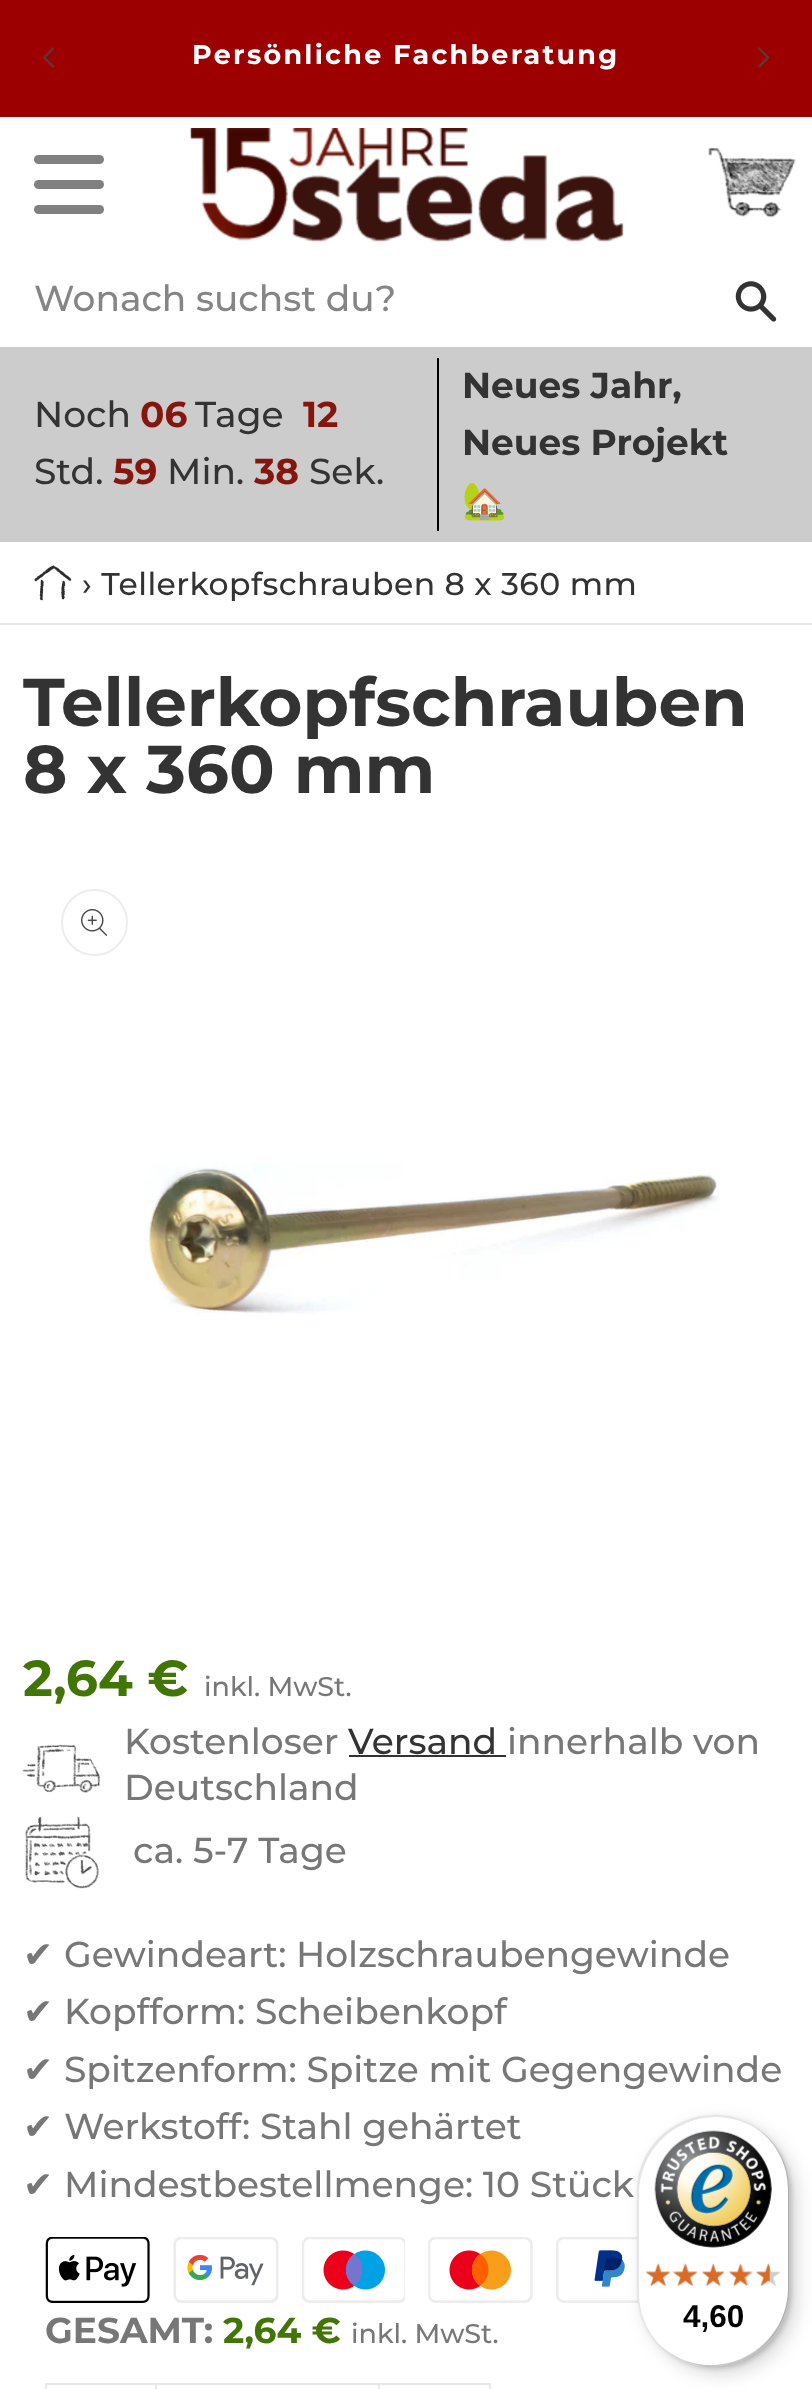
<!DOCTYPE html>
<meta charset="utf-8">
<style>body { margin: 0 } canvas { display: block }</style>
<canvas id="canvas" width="812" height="2389"></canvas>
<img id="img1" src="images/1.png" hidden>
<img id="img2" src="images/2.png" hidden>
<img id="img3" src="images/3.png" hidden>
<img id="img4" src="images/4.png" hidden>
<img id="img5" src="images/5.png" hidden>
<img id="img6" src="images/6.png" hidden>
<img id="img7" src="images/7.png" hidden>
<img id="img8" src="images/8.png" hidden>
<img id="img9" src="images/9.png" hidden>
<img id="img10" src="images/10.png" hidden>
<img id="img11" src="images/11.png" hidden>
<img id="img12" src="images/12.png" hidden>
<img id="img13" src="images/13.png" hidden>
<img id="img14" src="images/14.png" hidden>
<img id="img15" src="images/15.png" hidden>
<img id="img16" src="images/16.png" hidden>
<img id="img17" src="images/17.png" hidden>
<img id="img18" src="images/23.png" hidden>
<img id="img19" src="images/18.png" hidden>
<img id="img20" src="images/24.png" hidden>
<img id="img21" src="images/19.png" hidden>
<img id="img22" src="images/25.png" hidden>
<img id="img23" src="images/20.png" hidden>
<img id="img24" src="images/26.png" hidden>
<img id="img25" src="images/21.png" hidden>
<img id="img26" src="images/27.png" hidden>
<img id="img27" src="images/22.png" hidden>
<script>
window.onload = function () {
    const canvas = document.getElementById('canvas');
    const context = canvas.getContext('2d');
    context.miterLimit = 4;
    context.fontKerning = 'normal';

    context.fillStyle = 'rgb(255, 255, 255)';
    context.fillRect(0, 0, 812, 2389);
    context.fillStyle = 'rgb(157, 0, 0)';
    context.fillRect(0, 0, 812, 115);
    context.fillStyle = 'rgb(150, 6, 6)';
    context.fillRect(0, 115, 812, 2);
    context.drawImage(document.getElementById('img1'), 43, 47, 12, 21);
    context.drawImage(document.getElementById('img2'), 758, 47, 12, 21);
    context.fillStyle = 'rgb(128, 128, 128)';
    context.beginPath();
    context.roundRect(34, 155, 70, 9, 4.5);
    context.fill();
    context.beginPath();
    context.roundRect(34, 180, 70, 9, 4.5);
    context.fill();
    context.beginPath();
    context.roundRect(34, 205, 70, 9, 4.5);
    context.fill();
    context.drawImage(document.getElementById('img3'), 190, 128, 434, 114);
    context.drawImage(document.getElementById('img4'), 708, 147, 88, 71);
    context.drawImage(document.getElementById('img5'), 735, 281, 42, 41);
    context.fillStyle = 'rgb(204, 204, 204)';
    context.fillRect(0, 347, 812, 195);
    context.fillStyle = 'rgb(0, 0, 0)';
    context.fillRect(437, 358, 2, 173);
    context.fillStyle = 'rgb(232, 232, 232)';
    context.fillRect(0, 623, 812, 2);
    context.drawImage(document.getElementById('img6'), 34, 565, 38, 36);
    context.beginPath();
    context.arc(94.5, 922.5, 32.5, 0, 2 * Math.PI);
    context.strokeStyle = 'rgb(237, 237, 237)';
    context.lineWidth = 2;
    context.stroke();
    context.drawImage(document.getElementById('img7'), 81, 909, 27, 27);
    context.drawImage(document.getElementById('img8'), 144, 1162, 575, 152);
    context.drawImage(document.getElementById('img9'), 22, 1744, 79, 49);
    context.fillStyle = 'rgb(51, 51, 51)';
    context.fillRect(349, 1755, 157, 2);
    context.drawImage(document.getElementById('img10'), 25, 1816, 74, 73);
    context.drawImage(document.getElementById('img11'), 45, 2237, 105, 66);
    context.drawImage(document.getElementById('img12'), 173, 2237, 106, 66);
    context.drawImage(document.getElementById('img13'), 302, 2237, 103, 66);
    context.drawImage(document.getElementById('img14'), 428, 2237, 105, 66);
    context.drawImage(document.getElementById('img15'), 556, 2237, 82, 66);
    context.drawImage(document.getElementById('img16'), 789, 2291, 1, 10);
    context.strokeStyle = 'rgb(232, 232, 232)';
    context.strokeRect(46, 2384, 444, 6);
    context.fillStyle = 'rgb(232, 232, 232)';
    context.fillRect(378, 2385, 2, 4);
    context.fillRect(155, 2385, 2, 4);
    context.fillStyle = 'rgba(0, 0, 0, 0.15)';
    context.filter = 'blur(9px)';
    context.beginPath();
    context.roundRect(644, 2122, 153, 252, 76.5);
    context.fill();
    context.filter = 'none';
    context.filter = 'blur(2px)';
    context.beginPath();
    context.roundRect(639, 2117, 153, 252, 76.5);
    context.fill();
    context.filter = 'none';
    context.fillStyle = 'rgb(255, 255, 255)';
    context.beginPath();
    context.roundRect(637, 2115, 153, 252, 76.5);
    context.fill();
    context.fillStyle = 'rgba(0, 0, 0, 0.1)';
    context.beginPath();
    context.moveTo(716, 2117);
    context.bezierCurveTo(738, 2117, 757, 2126, 771, 2141);
    context.bezierCurveTo(757, 2125, 737, 2115, 714, 2115);
    context.bezierCurveTo(671, 2115, 637, 2149, 637, 2192);
    context.lineTo(637, 2290);
    context.bezierCurveTo(637, 2311, 645, 2329, 658, 2343);
    context.bezierCurveTo(646, 2329, 639, 2312, 639, 2293);
    context.lineTo(639, 2194);
    context.bezierCurveTo(639, 2152, 673, 2117, 716, 2117);
    context.closePath();
    context.fill();
    context.fillStyle = 'rgba(0, 0, 0, 0.2)';
    context.beginPath();
    context.moveTo(662, 2347);
    context.bezierCurveTo(675, 2359, 694, 2367, 714, 2367);
    context.bezierCurveTo(756, 2367, 790, 2333, 790, 2290);
    context.lineTo(790, 2192);
    context.bezierCurveTo(790, 2168, 780, 2148, 764, 2134);
    context.bezierCurveTo(779, 2148, 788, 2167, 788, 2189);
    context.lineTo(788, 2288);
    context.bezierCurveTo(788, 2330, 753, 2365, 711, 2365);
    context.bezierCurveTo(692, 2365, 675, 2358, 662, 2347);
    context.closePath();
    context.fill();
    context.fillStyle = 'rgba(50, 50, 50, 0.2)';
    context.beginPath();
    context.moveTo(665, 2350);
    context.bezierCurveTo(678, 2360, 695, 2367, 714, 2367);
    context.bezierCurveTo(756, 2367, 790, 2333, 790, 2290);
    context.lineTo(790, 2192);
    context.bezierCurveTo(790, 2164, 775, 2139, 753, 2126);
    context.bezierCurveTo(774, 2139, 788, 2163, 788, 2190);
    context.lineTo(788, 2289);
    context.bezierCurveTo(788, 2331, 754, 2366, 712, 2366);
    context.bezierCurveTo(694, 2366, 678, 2360, 665, 2350);
    context.closePath();
    context.fill();
    context.fillStyle = 'rgba(255, 255, 255, 0.3)';
    context.beginPath();
    context.moveTo(665, 2350);
    context.bezierCurveTo(678, 2361, 695, 2367, 714, 2367);
    context.bezierCurveTo(756, 2367, 790, 2333, 790, 2290);
    context.lineTo(790, 2192);
    context.bezierCurveTo(790, 2167, 778, 2145, 761, 2131);
    context.bezierCurveTo(778, 2145, 789, 2166, 789, 2190);
    context.lineTo(789, 2289);
    context.bezierCurveTo(789, 2332, 754, 2366, 712, 2366);
    context.bezierCurveTo(694, 2366, 678, 2360, 665, 2350);
    context.closePath();
    context.fill();
    context.drawImage(document.getElementById('img17'), 654, 2130, 118, 118);
    context.drawImage(document.getElementById('img18'), 646, 2263, 24, 23);
    context.drawImage(document.getElementById('img19'), 645, 2263, 26, 23);
    context.drawImage(document.getElementById('img20'), 675, 2263, 22, 23);
    context.drawImage(document.getElementById('img21'), 672, 2263, 26, 23);
    context.drawImage(document.getElementById('img22'), 702, 2263, 22, 23);
    context.drawImage(document.getElementById('img23'), 702, 2263, 23, 23);
    context.drawImage(document.getElementById('img24'), 729, 2263, 25, 23);
    context.drawImage(document.getElementById('img25'), 729, 2263, 23, 23);
    context.drawImage(document.getElementById('img26'), 756, 2263, 25, 23);
    context.drawImage(document.getElementById('img27'), 756, 2263, 14, 23);
    context.letterSpacing = '2.25px';
    context.font = 'bold 27px Montserrat';
    context.fillStyle = 'rgb(255, 255, 255)';
    context.fillText('Persönliche Fachberatung', 192, 64);
    context.letterSpacing = '0px';
    context.font = '500 36px Montserrat';
    context.fillStyle = 'rgb(133, 133, 133)';
    context.fillText('Wonach suchst du?', 34, 311);
    context.fillStyle = 'rgb(51, 51, 51)';
    context.fillText('Noch', 34, 427);
    context.font = 'bold 36px Montserrat';
    context.fillStyle = 'rgb(133, 22, 14)';
    context.fillText('06', 140, 427);
    context.font = '500 36px Montserrat';
    context.fillStyle = 'rgb(51, 51, 51)';
    context.fillText('Tage', 195, 427);
    context.font = 'bold 36px Montserrat';
    context.fillStyle = 'rgb(133, 22, 14)';
    context.fillText('12', 303, 427);
    context.font = '500 36px Montserrat';
    context.fillStyle = 'rgb(51, 51, 51)';
    context.fillText('Std.', 34, 484);
    context.font = 'bold 36px Montserrat';
    context.fillStyle = 'rgb(133, 22, 14)';
    context.fillText('59', 113, 484);
    context.font = '500 36px Montserrat';
    context.fillStyle = 'rgb(51, 51, 51)';
    context.fillText('Min.', 167, 484);
    context.font = 'bold 36px Montserrat';
    context.fillStyle = 'rgb(133, 22, 14)';
    context.fillText('38', 254, 484);
    context.font = '500 36px Montserrat';
    context.fillStyle = 'rgb(51, 51, 51)';
    context.fillText('Sek.', 309, 484);
    context.font = 'bold 36px Montserrat';
    context.fillText('Neues Jahr,', 462, 398);
    context.fillText('Neues Projekt', 462, 455);
    context.font = 'bold 36px Noto Color Emoji';
    context.fillText('🏡', 462, 513);
    context.letterSpacing = '0.45px';
    context.font = '500 31.5px Montserrat';
    context.fillText('› Tellerkopfschrauben 8 x 360 mm', 82, 595);
    context.letterSpacing = '0px';
    context.font = 'bold 67.5px Montserrat';
    context.fillText('Tellerkopfschrauben', 23, 726);
    context.fillText('8 x 360 mm', 23, 793);
    context.font = 'bold 50.5px Montserrat';
    context.fillStyle = 'rgb(65, 117, 5)';
    context.fillText('2,64 €', 23, 1696);
    context.font = '500 27px Montserrat';
    context.fillStyle = 'rgb(119, 119, 119)';
    context.fillText('inkl. MwSt.', 204, 1696);
    context.font = '500 36px Montserrat';
    context.fillText('Kostenloser', 124, 1754);
    context.fillStyle = 'rgb(51, 51, 51)';
    context.fillText('Versand', 348, 1754);
    context.fillStyle = 'rgb(119, 119, 119)';
    context.fillText('innerhalb von', 507, 1754);
    context.fillText('Deutschland', 124, 1800);
    context.fillText('ca. 5-7 Tage', 133, 1863);
    context.font = '36px DejaVu Sans';
    context.fillText('✔', 23, 1967);
    context.font = '500 36px Montserrat';
    context.fillText('Gewindeart: Holzschraubengewinde', 64, 1967);
    context.font = '36px DejaVu Sans';
    context.fillText('✔', 23, 2024);
    context.font = '500 36px Montserrat';
    context.fillText('Kopfform: Scheibenkopf', 64, 2024);
    context.font = '36px DejaVu Sans';
    context.fillText('✔', 23, 2082);
    context.font = '500 36px Montserrat';
    context.fillText('Spitzenform: Spitze mit Gegengewinde', 64, 2082);
    context.font = '36px DejaVu Sans';
    context.fillText('✔', 23, 2139);
    context.font = '500 36px Montserrat';
    context.fillText('Werkstoff: Stahl gehärtet', 64, 2139);
    context.font = '36px DejaVu Sans';
    context.fillText('✔', 23, 2197);
    context.font = '500 36px Montserrat';
    context.fillText('Mindestbestellmenge: 10 Stück', 64, 2197);
    context.font = 'bold 36px Montserrat';
    context.fillText('GESAMT:', 45, 2343);
    context.fillStyle = 'rgb(65, 117, 5)';
    context.fillText('2,64 €', 223, 2343);
    context.font = '500 27px Montserrat';
    context.fillStyle = 'rgb(119, 119, 119)';
    context.fillText('inkl. MwSt.', 351, 2343);
    context.font = 'bold 31.5px Liberation Sans';
    context.fillStyle = 'rgb(0, 0, 0)';
    context.fillText('4,60', 683, 2327);
};
</script>
